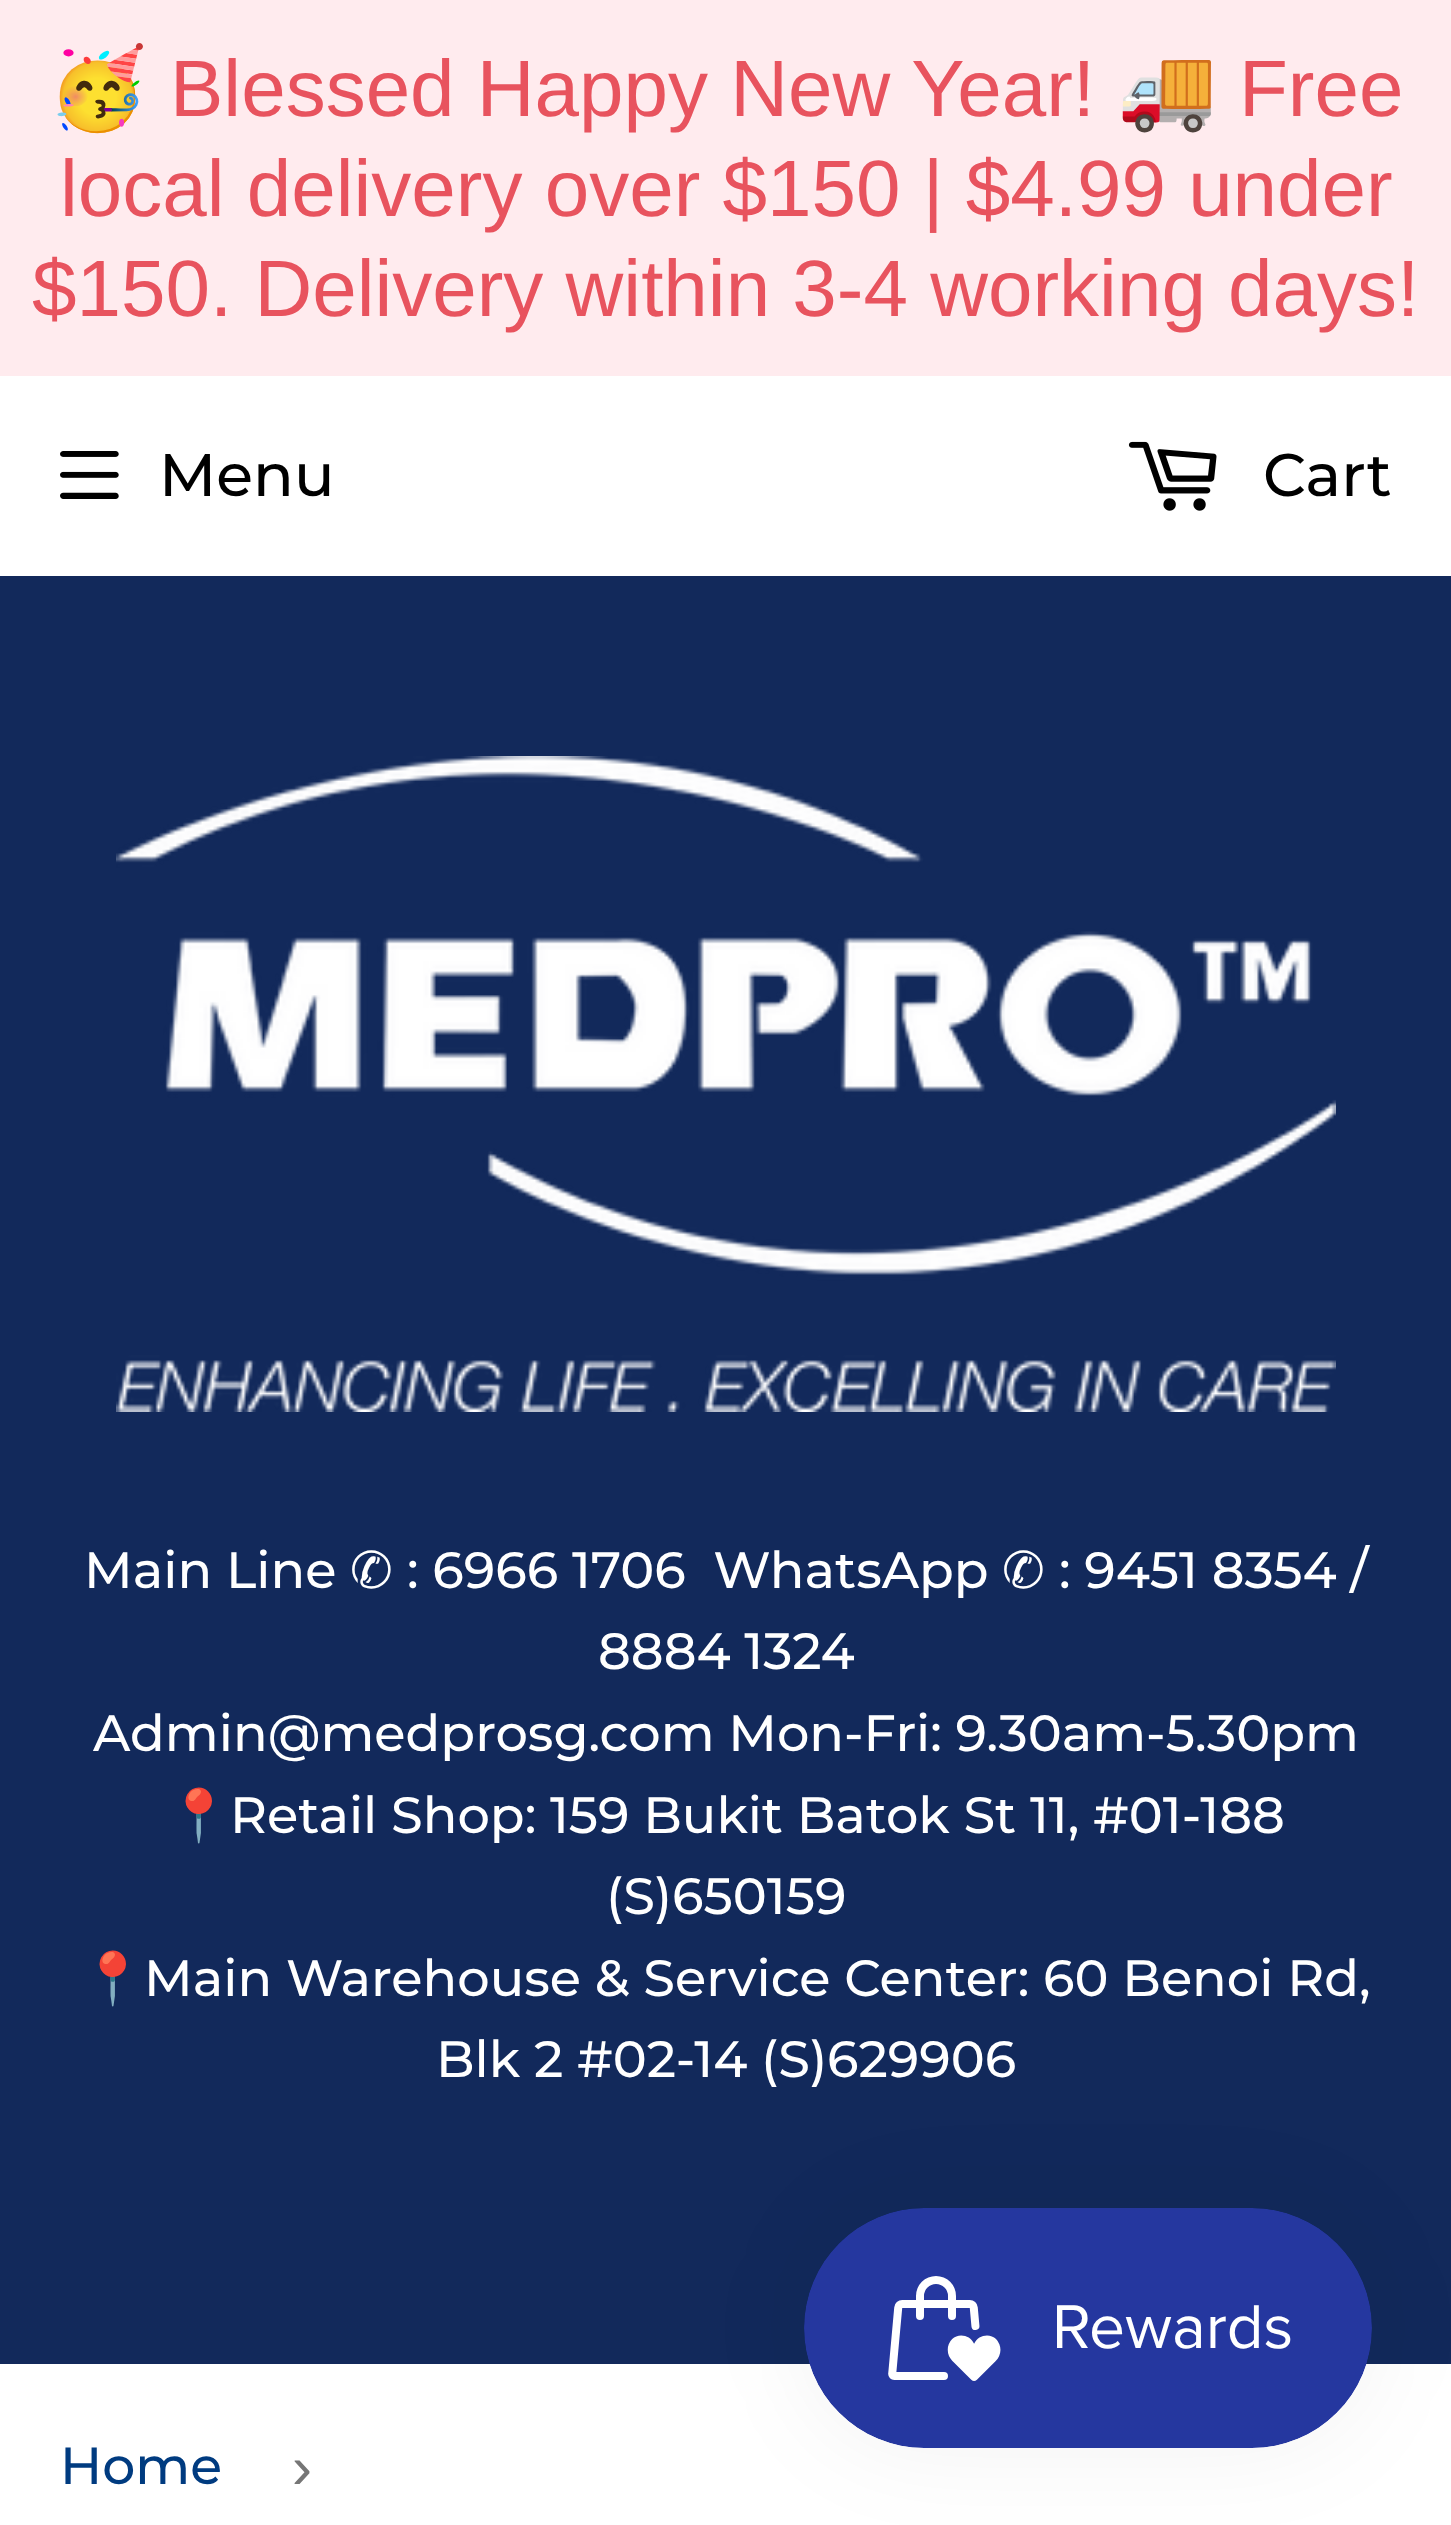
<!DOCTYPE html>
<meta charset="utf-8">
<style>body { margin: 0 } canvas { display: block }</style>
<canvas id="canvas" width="1451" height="2525"></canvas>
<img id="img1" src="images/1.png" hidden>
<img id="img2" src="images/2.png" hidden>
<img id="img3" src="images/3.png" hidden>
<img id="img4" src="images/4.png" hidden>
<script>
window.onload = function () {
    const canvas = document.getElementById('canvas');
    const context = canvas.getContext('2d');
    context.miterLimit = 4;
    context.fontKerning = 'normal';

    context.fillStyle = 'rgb(255, 255, 255)';
    context.fillRect(0, 0, 1451, 2525);
    context.fillStyle = 'rgb(255, 235, 238)';
    context.fillRect(0, 0, 1451, 376);
    context.drawImage(document.getElementById('img1'), 60, 451, 59, 48);
    context.drawImage(document.getElementById('img2'), 1128, 441, 89, 70);
    context.fillStyle = 'rgb(18, 41, 91)';
    context.fillRect(0, 576, 1451, 1788);
    context.drawImage(document.getElementById('img3'), 116, 756, 1220, 656);
    context.fillStyle = 'rgba(0, 0, 0, 0.05)';
    context.filter = 'blur(50px)';
    context.beginPath();
    context.roundRect(804, 2208, 568, 240, 120);
    context.fill();
    context.filter = 'none';
    context.drawImage(document.getElementById('img4'), 804, 2208, 568, 240);
    context.font = '80px Noto Color Emoji';
    context.fillStyle = 'rgb(232, 83, 94)';
    context.fillText('🥳', 48, 116);
    context.font = '80px Liberation Sans';
    context.fillText('Blessed Happy New Year!', 170, 116);
    context.font = '80px Noto Color Emoji';
    context.fillText('🚚', 1117, 116);
    context.font = '80px Liberation Sans';
    context.fillText('Free', 1239, 116);
    context.fillText('local delivery over $150 | $4.99 under', 60, 216);
    context.fillText('$150. Delivery within 3-4 working days!', 32, 316);
    context.font = '500 60px Montserrat';
    context.fillStyle = 'rgb(0, 0, 0)';
    context.fillText('Menu', 159, 496);
    context.fillText('Cart', 1263, 496);
    context.font = '500 51px Montserrat';
    context.fillStyle = 'rgb(255, 255, 255)';
    context.fillText('Main Line', 84, 1588);
    context.font = '51px DejaVu Sans';
    context.fillText('✆', 350, 1588);
    context.font = '500 51px Montserrat';
    context.fillText(': 6966 1706  WhatsApp', 407, 1588);
    context.font = '51px DejaVu Sans';
    context.fillText('✆', 1002, 1588);
    context.font = '500 51px Montserrat';
    context.fillText(': 9451 8354 /', 1059, 1588);
    context.fillText('8884 1324', 598, 1669);
    context.fillText('Admin@medprosg.com Mon-Fri: 9.30am-5.30pm', 93, 1751);
    context.font = '51px Noto Color Emoji';
    context.fillText('📍', 167, 1833);
    context.font = '500 51px Montserrat';
    context.fillText('Retail Shop: 159 Bukit Batok St 11, #01-188', 230, 1833);
    context.fillText('(S)650159', 606, 1914);
    context.font = '51px Noto Color Emoji';
    context.fillText('📍', 81, 1996);
    context.font = '500 51px Montserrat';
    context.fillText('Main Warehouse & Service Center: 60 Benoi Rd,', 144, 1996);
    context.fillText('Blk 2 #02-14 (S)629906', 436, 2077);
    context.font = '500 52px Montserrat';
    context.fillStyle = 'rgb(0, 59, 128)';
    context.fillText('Home', 60, 2484);
    context.font = '60px Liberation Sans';
    context.fillStyle = 'rgb(118, 118, 118)';
    context.fillText('›', 292, 2488);
};
</script>
